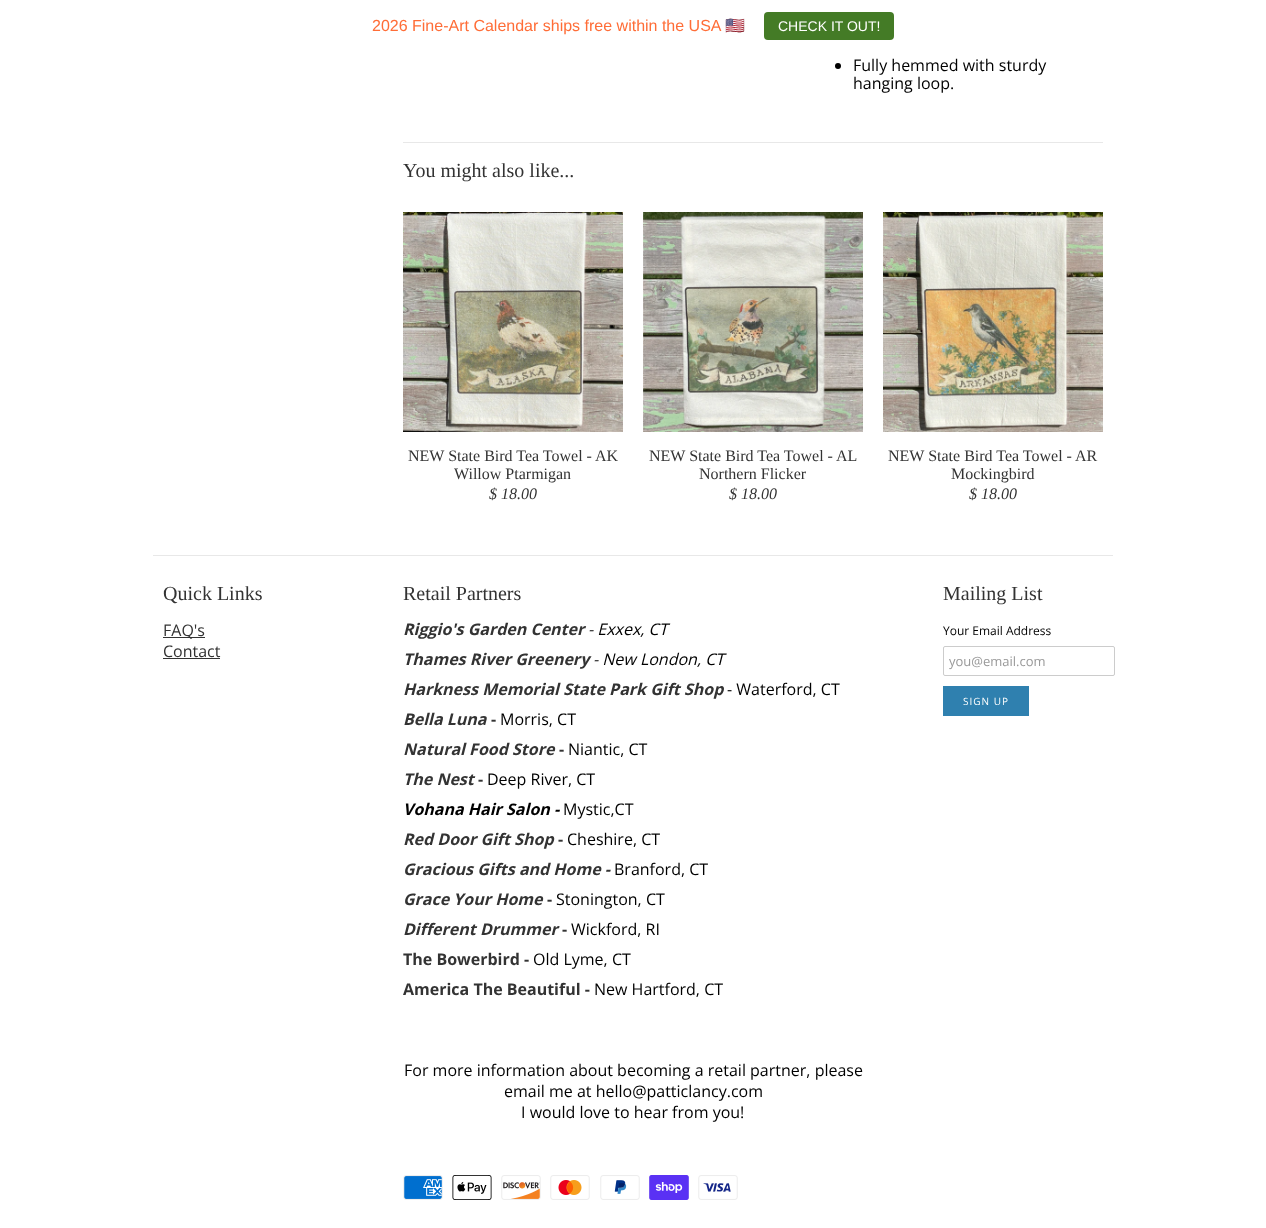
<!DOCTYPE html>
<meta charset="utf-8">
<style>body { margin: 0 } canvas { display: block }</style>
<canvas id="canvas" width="1266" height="1228"></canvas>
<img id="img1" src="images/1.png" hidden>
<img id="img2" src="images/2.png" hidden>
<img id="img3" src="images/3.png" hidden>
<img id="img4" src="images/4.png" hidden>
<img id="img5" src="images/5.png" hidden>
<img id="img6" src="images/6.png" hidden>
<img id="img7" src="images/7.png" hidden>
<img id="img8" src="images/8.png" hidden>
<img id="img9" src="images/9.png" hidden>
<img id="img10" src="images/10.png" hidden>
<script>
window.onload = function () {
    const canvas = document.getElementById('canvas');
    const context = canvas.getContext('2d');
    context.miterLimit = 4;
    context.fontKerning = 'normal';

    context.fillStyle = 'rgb(255, 255, 255)';
    context.fillRect(0, 0, 1266, 1228);
    context.fillStyle = 'rgb(68, 123, 38)';
    context.beginPath();
    context.roundRect(764, 12, 130, 28, 4);
    context.fill();
    context.fillStyle = 'rgb(0, 0, 0)';
    context.beginPath();
    context.arc(838, 66, 3, 0, 2 * Math.PI);
    context.fill();
    context.fillStyle = 'rgb(232, 232, 232)';
    context.fillRect(403, 142, 700, 1);
    context.drawImage(document.getElementById('img1'), 403, 212, 220, 220);
    context.drawImage(document.getElementById('img2'), 643, 212, 220, 220);
    context.drawImage(document.getElementById('img3'), 883, 212, 220, 220);
    context.fillRect(153, 555, 960, 1);
    context.fillStyle = 'rgb(51, 51, 51)';
    context.fillRect(163, 637, 42, 1);
    context.fillRect(163, 658, 57, 1);
    context.drawImage(document.getElementById('img4'), 403, 1175, 40, 25);
    context.drawImage(document.getElementById('img5'), 452, 1175, 40, 25);
    context.drawImage(document.getElementById('img6'), 501, 1175, 40, 25);
    context.drawImage(document.getElementById('img7'), 550, 1175, 40, 25);
    context.drawImage(document.getElementById('img8'), 600, 1175, 40, 25);
    context.drawImage(document.getElementById('img9'), 649, 1175, 40, 25);
    context.drawImage(document.getElementById('img10'), 698, 1175, 40, 25);
    context.beginPath();
    context.roundRect(943.5, 646.5, 171, 29, 1.5);
    context.strokeStyle = 'rgb(204, 204, 204)';
    context.stroke();
    context.fillStyle = 'rgb(47, 128, 175)';
    context.fillRect(943, 686, 86, 30);
    context.font = '16px Liberation Sans';
    context.fillStyle = 'rgb(255, 109, 55)';
    context.fillText('2026 Fine-Art Calendar ships free within the USA', 372, 31);
    context.font = '16px Noto Color Emoji';
    context.fillText('🇺🇸', 725, 31);
    context.font = '14px Liberation Sans';
    context.fillStyle = 'rgb(255, 255, 255)';
    context.fillText('CHECK IT OUT!', 778, 31);
    context.font = '16px Open Sans';
    context.fillStyle = 'rgb(0, 0, 0)';
    context.fillText('Fully hemmed with sturdy', 853, 71);
    context.fillText('hanging loop.', 853, 89);
    context.font = '20px Liberation Serif';
    context.fillStyle = 'rgb(51, 51, 51)';
    context.fillText('You might also like...', 403, 177);
    context.font = '16px Liberation Serif';
    context.fillText('NEW State Bird Tea Towel - AK', 408, 461);
    context.fillText('Willow Ptarmigan', 454, 479);
    context.font = 'italic 16px Liberation Serif';
    context.fillText('$ 18.00', 489, 499);
    context.font = '16px Liberation Serif';
    context.fillText('NEW State Bird Tea Towel - AL', 649, 461);
    context.fillText('Northern Flicker', 699, 479);
    context.font = 'italic 16px Liberation Serif';
    context.fillText('$ 18.00', 729, 499);
    context.font = '16px Liberation Serif';
    context.fillText('NEW State Bird Tea Towel - AR', 888, 461);
    context.fillText('Mockingbird', 951, 479);
    context.font = 'italic 16px Liberation Serif';
    context.fillText('$ 18.00', 969, 499);
    context.font = '20px Liberation Serif';
    context.fillText('Quick Links', 163, 600);
    context.font = '16px Open Sans';
    context.fillText('FAQ\'s', 163, 636);
    context.fillText('Contact', 163, 657);
    context.font = '20px Liberation Serif';
    context.fillText('Retail Partners', 403, 600);
    context.font = 'italic bold 16px Open Sans';
    context.fillText('Riggio\'s Garden Center', 403, 635);
    context.font = 'italic 16px Open Sans';
    context.fillStyle = 'rgb(0, 0, 0)';
    context.fillText('- Exxex, CT', 588, 635);
    context.font = 'italic bold 16px Open Sans';
    context.fillStyle = 'rgb(51, 51, 51)';
    context.fillText('Thames River Greenery', 403, 665);
    context.font = 'italic 16px Open Sans';
    context.fillStyle = 'rgb(0, 0, 0)';
    context.fillText('- New London, CT', 593, 665);
    context.font = 'italic bold 16px Open Sans';
    context.fillStyle = 'rgb(51, 51, 51)';
    context.fillText('Harkness Memorial State Park Gift Shop', 403, 695);
    context.font = '16px Open Sans';
    context.fillStyle = 'rgb(0, 0, 0)';
    context.fillText('- Waterford, CT', 727, 695);
    context.font = 'italic bold 16px Open Sans';
    context.fillStyle = 'rgb(51, 51, 51)';
    context.fillText('Bella Luna', 403, 725);
    context.font = 'bold 16px Open Sans';
    context.fillText('-', 491, 725);
    context.font = '16px Open Sans';
    context.fillStyle = 'rgb(0, 0, 0)';
    context.fillText('Morris, CT', 500, 725);
    context.font = 'italic bold 16px Open Sans';
    context.fillStyle = 'rgb(51, 51, 51)';
    context.fillText('Natural Food Store', 403, 755);
    context.font = 'bold 16px Open Sans';
    context.fillText('-', 559, 755);
    context.font = '16px Open Sans';
    context.fillStyle = 'rgb(0, 0, 0)';
    context.fillText('Niantic, CT', 568, 755);
    context.font = 'italic bold 16px Open Sans';
    context.fillStyle = 'rgb(51, 51, 51)';
    context.fillText('The Nest', 403, 785);
    context.font = 'bold 16px Open Sans';
    context.fillText('-', 478, 785);
    context.font = '16px Open Sans';
    context.fillStyle = 'rgb(0, 0, 0)';
    context.fillText('Deep River, CT', 487, 785);
    context.font = 'italic bold 16px Open Sans';
    context.fillText('Vohana Hair Salon -', 403, 815);
    context.font = '16px Open Sans';
    context.fillText('Mystic,CT', 563, 815);
    context.font = 'italic bold 16px Open Sans';
    context.fillStyle = 'rgb(51, 51, 51)';
    context.fillText('Red Door Gift Shop', 403, 845);
    context.font = 'bold 16px Open Sans';
    context.fillText('-', 558, 845);
    context.font = '16px Open Sans';
    context.fillStyle = 'rgb(0, 0, 0)';
    context.fillText('Cheshire, CT', 567, 845);
    context.font = 'italic bold 16px Open Sans';
    context.fillStyle = 'rgb(51, 51, 51)';
    context.fillText('Gracious Gifts and Home -', 403, 875);
    context.font = '16px Open Sans';
    context.fillStyle = 'rgb(0, 0, 0)';
    context.fillText('Branford, CT', 614, 875);
    context.font = 'italic bold 16px Open Sans';
    context.fillStyle = 'rgb(51, 51, 51)';
    context.fillText('Grace Your Home', 403, 905);
    context.font = 'bold 16px Open Sans';
    context.fillText('-', 547, 905);
    context.font = '16px Open Sans';
    context.fillStyle = 'rgb(0, 0, 0)';
    context.fillText('Stonington, CT', 556, 905);
    context.font = 'italic bold 16px Open Sans';
    context.fillStyle = 'rgb(51, 51, 51)';
    context.fillText('Different Drummer', 403, 935);
    context.font = 'bold 16px Open Sans';
    context.fillText('-', 562, 935);
    context.font = '16px Open Sans';
    context.fillStyle = 'rgb(0, 0, 0)';
    context.fillText('Wickford, RI', 571, 935);
    context.font = 'bold 16px Open Sans';
    context.fillStyle = 'rgb(51, 51, 51)';
    context.fillText('The Bowerbird -', 403, 965);
    context.font = '16px Open Sans';
    context.fillStyle = 'rgb(0, 0, 0)';
    context.fillText('Old Lyme, CT', 533, 965);
    context.font = 'bold 16px Open Sans';
    context.fillStyle = 'rgb(51, 51, 51)';
    context.fillText('America The Beautiful -', 403, 995);
    context.font = '16px Open Sans';
    context.fillStyle = 'rgb(0, 0, 0)';
    context.fillText('New Hartford, CT', 594, 995);
    context.fillText('For more information about becoming a retail partner, please', 404, 1076);
    context.fillText('email me at hello@patticlancy.com', 504, 1097);
    context.fillText('I would love to hear from you!', 521, 1118);
    context.font = '20px Liberation Serif';
    context.fillStyle = 'rgb(51, 51, 51)';
    context.fillText('Mailing List', 943, 600);
    context.font = '12px Open Sans';
    context.fillStyle = 'rgb(0, 0, 0)';
    context.fillText('Your Email Address', 943, 635);
    context.font = '13px Open Sans';
    context.fillStyle = 'rgb(153, 153, 153)';
    context.fillText('you@email.com', 949, 666);
    context.letterSpacing = '1px';
    context.font = '10px Open Sans';
    context.fillStyle = 'rgb(255, 255, 255)';
    context.fillText('SIGN UP', 963, 705);
};
</script>
